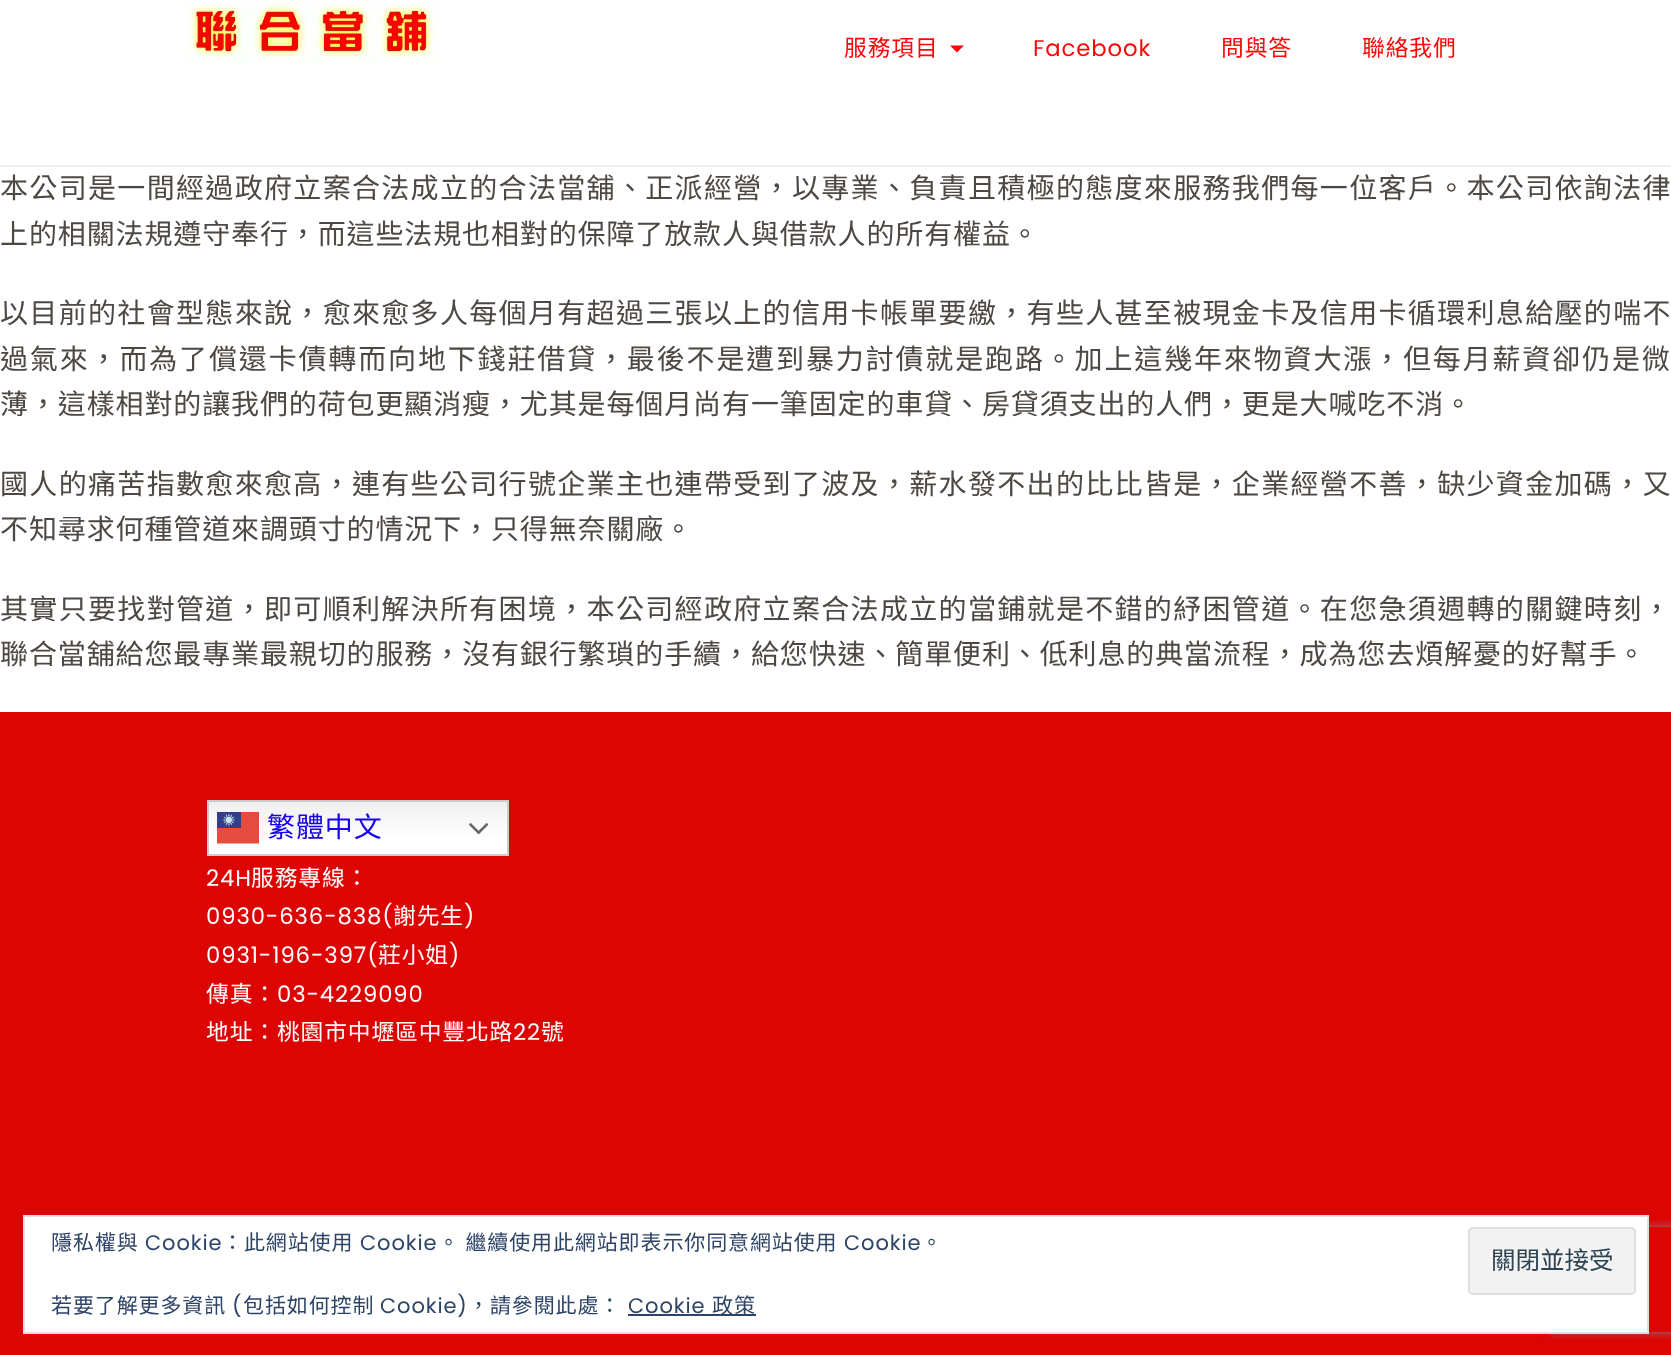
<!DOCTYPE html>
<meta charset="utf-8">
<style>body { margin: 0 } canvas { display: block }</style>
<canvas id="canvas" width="1671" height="1355"></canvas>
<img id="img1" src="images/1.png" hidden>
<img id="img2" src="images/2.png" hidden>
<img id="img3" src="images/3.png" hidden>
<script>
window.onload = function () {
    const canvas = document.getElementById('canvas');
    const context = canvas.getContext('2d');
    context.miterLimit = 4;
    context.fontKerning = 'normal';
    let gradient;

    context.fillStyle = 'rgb(255, 255, 255)';
    context.fillRect(0, 0, 1671, 1355);
    context.fillStyle = 'rgb(241, 241, 241)';
    context.fillRect(0, 165, 1671, 2);
    context.drawImage(document.getElementById('img1'), 187, 1, 251, 65);
    context.fillStyle = 'rgb(255, 5, 5)';
    context.beginPath();
    context.moveTo(950, 45.5);
    context.lineTo(964, 45.5);
    context.lineTo(957, 52.5);
    context.closePath();
    context.fill();
    context.fillStyle = 'rgb(221, 4, 4)';
    context.fillRect(0, 712, 1671, 643);
    gradient = context.createLinearGradient(358, 800, 358, 856);
    gradient.addColorStop(0, 'rgb(239, 239, 239)');
    gradient.addColorStop(0.7, 'rgb(255, 255, 255)');
    context.fillStyle = gradient;
    context.fillRect(209, 802, 298, 52);
    context.strokeStyle = 'rgb(204, 204, 204)';
    context.lineWidth = 2;
    context.strokeRect(208, 801, 300, 54);
    context.drawImage(document.getElementById('img2'), 217, 812, 42, 32);
    context.drawImage(document.getElementById('img3'), 469, 823, 19, 12);
    context.save();
    context.beginPath();
    context.moveTo(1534, 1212);
    context.lineTo(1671, 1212);
    context.lineTo(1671, 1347);
    context.lineTo(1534, 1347);
    context.closePath();
    context.moveTo(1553, 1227);
    context.lineTo(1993, 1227);
    context.bezierCurveTo(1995, 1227, 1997, 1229, 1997, 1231);
    context.lineTo(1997, 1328);
    context.bezierCurveTo(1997, 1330, 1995, 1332, 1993, 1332);
    context.lineTo(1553, 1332);
    context.bezierCurveTo(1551, 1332, 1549, 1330, 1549, 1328);
    context.lineTo(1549, 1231);
    context.bezierCurveTo(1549, 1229, 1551, 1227, 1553, 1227);
    context.closePath();
    context.clip('evenodd');
    context.fillStyle = 'rgb(128, 128, 128)';
    context.filter = 'blur(4.5px)';
    context.beginPath();
    context.roundRect(1549, 1227, 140, 105, 4);
    context.fill();
    context.filter = 'none';
    context.restore();
    context.fillStyle = 'rgb(255, 255, 255)';
    context.beginPath();
    context.rect(24, 1216, 1624, 117);
    context.fill();
    context.strokeStyle = 'rgb(222, 222, 222)';
    context.stroke();
    context.fillStyle = 'rgb(243, 243, 243)';
    context.beginPath();
    context.roundRect(1469, 1228, 166, 66, 4);
    context.fill();
    context.stroke();
    context.fillStyle = 'rgb(46, 68, 103)';
    context.fillRect(628, 1314, 128, 2);
    context.letterSpacing = '0.88px';
    context.font = '22.75px Noto Sans CJK TC';
    context.fillStyle = 'rgb(255, 5, 5)';
    context.fillText('服務項目', 844, 56);
    context.font = '22.75px Poppins';
    context.fillText('Facebook', 1033, 56);
    context.font = '22.75px Noto Sans CJK TC';
    context.fillText('問與答', 1221, 56);
    context.fillText('聯絡我們', 1362, 56);
    context.letterSpacing = '1.33px';
    context.font = '28px Noto Sans CJK TC';
    context.fillStyle = 'rgb(77, 72, 67)';
    context.fillText('本公司是一間經過政府立案合法成立的合法當舖、正派經營，以專業、負責且積極的態度來服務我們每一位客戶。本公司依詢法律', 0, 198);
    context.letterSpacing = '0.88px';
    context.fillText('上的相關法規遵守奉行，而這些法規也相對的保障了放款人與借款人的所有權益。', 0, 244);
    context.letterSpacing = '1.33px';
    context.fillText('以目前的社會型態來說，愈來愈多人每個月有超過三張以上的信用卡帳單要繳，有些人甚至被現金卡及信用卡循環利息給壓的喘不', 0, 323);
    context.letterSpacing = '1.85px';
    context.fillText('過氣來，而為了償還卡債轉而向地下錢莊借貸，最後不是遭到暴力討債就是跑路。加上這幾年來物資大漲，但每月薪資卻仍是微', 0, 369);
    context.letterSpacing = '0.88px';
    context.fillText('薄，這樣相對的讓我們的荷包更顯消瘦，尤其是每個月尚有一筆固定的車貸、房貸須支出的人們，更是大喊吃不消。', 0, 414);
    context.letterSpacing = '1.33px';
    context.fillText('國人的痛苦指數愈來愈高，連有些公司行號企業主也連帶受到了波及，薪水發不出的比比皆是，企業經營不善，缺少資金加碼，又', 0, 494);
    context.letterSpacing = '0.88px';
    context.fillText('不知尋求何種管道來調頭寸的情況下，只得無奈關廠。', 0, 539);
    context.letterSpacing = '1.33px';
    context.fillText('其實只要找對管道，即可順利解決所有困境，本公司經政府立案合法成立的當鋪就是不錯的紓困管道。在您急須週轉的關鍵時刻，', 0, 619);
    context.letterSpacing = '0.88px';
    context.fillText('聯合當舖給您最專業最親切的服務，沒有銀行繁瑣的手續，給您快速、簡單便利、低利息的典當流程，成為您去煩解憂的好幫手。', 0, 664);
    context.fillStyle = 'rgb(23, 0, 237)';
    context.fillText('繁體中文', 267, 837);
    context.font = '22.75px Poppins';
    context.fillStyle = 'rgb(255, 255, 255)';
    context.fillText('24H', 206, 886);
    context.font = '22.75px Noto Sans CJK TC';
    context.fillText('服務專線：', 251, 886);
    context.font = '22.75px Poppins';
    context.fillText('0930-636-838(', 206, 924);
    context.font = '22.75px Noto Sans CJK TC';
    context.fillText('謝先生', 393, 924);
    context.font = '22.75px Poppins';
    context.fillText(')', 464, 924);
    context.fillText('0931-196-397(', 206, 963);
    context.font = '22.75px Noto Sans CJK TC';
    context.fillText('莊小姐', 378, 963);
    context.font = '22.75px Poppins';
    context.fillText(')', 449, 963);
    context.font = '22.75px Noto Sans CJK TC';
    context.fillText('傳真：', 206, 1002);
    context.font = '22.75px Poppins';
    context.fillText('03-4229090', 277, 1002);
    context.font = '22.75px Noto Sans CJK TC';
    context.fillText('地址：桃園市中壢區中豐北路', 206, 1040);
    context.font = '22.75px Poppins';
    context.fillText('22', 513, 1040);
    context.font = '22.75px Noto Sans CJK TC';
    context.fillText('號', 541, 1040);
    context.font = '21px Noto Sans CJK TC';
    context.fillStyle = 'rgb(46, 68, 103)';
    context.fillText('隱私權與', 51, 1250);
    context.font = '21px Poppins';
    context.fillText('Cookie', 145, 1250);
    context.font = '21px Noto Sans CJK TC';
    context.fillText('：此網站使用', 222, 1250);
    context.font = '21px Poppins';
    context.fillText('Cookie', 360, 1250);
    context.font = '21px Noto Sans CJK TC';
    context.fillText('。 繼續使用此網站即表示你同意網站使用', 438, 1250);
    context.font = '21px Poppins';
    context.fillText('Cookie', 844, 1250);
    context.font = '21px Noto Sans CJK TC';
    context.fillText('。', 921, 1250);
    context.letterSpacing = '0px';
    context.font = '24.5px Noto Sans CJK TC';
    context.fillStyle = 'rgb(46, 68, 83)';
    context.fillText('關閉並接受', 1491, 1269);
    context.letterSpacing = '0.88px';
    context.font = '21px Noto Sans CJK TC';
    context.fillStyle = 'rgb(46, 68, 103)';
    context.fillText('若要了解更多資訊', 51, 1313);
    context.font = '21px Poppins';
    context.fillText('(', 232, 1313);
    context.font = '21px Noto Sans CJK TC';
    context.fillText('包括如何控制', 243, 1313);
    context.font = '21px Poppins';
    context.fillText('Cookie)', 380, 1313);
    context.font = '21px Noto Sans CJK TC';
    context.fillText('，請參閱此處：', 468, 1313);
    context.font = '21px Poppins';
    context.fillText('Cookie', 628, 1313);
    context.font = '21px Noto Sans CJK TC';
    context.fillText('政策', 712, 1313);
};
</script>
